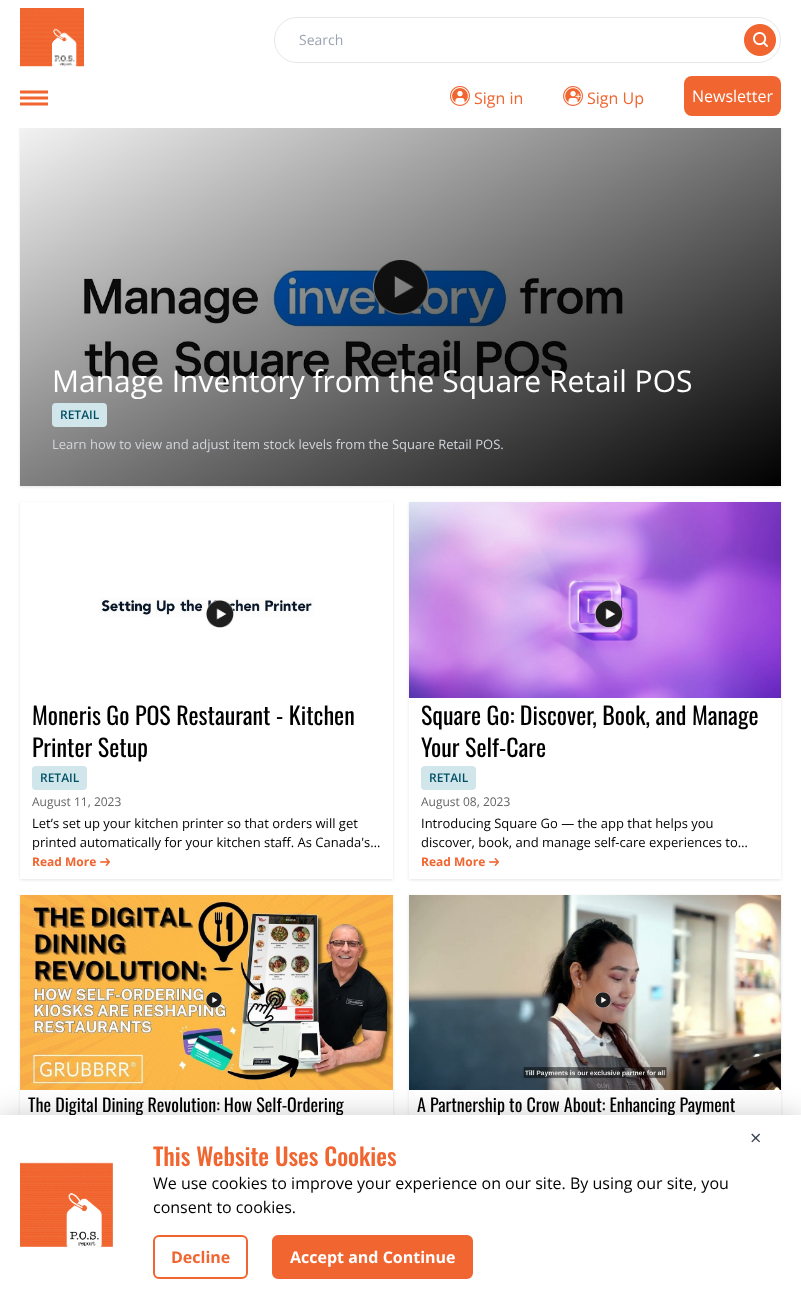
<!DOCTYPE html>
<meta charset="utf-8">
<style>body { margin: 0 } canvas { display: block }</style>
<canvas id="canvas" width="801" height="1303"></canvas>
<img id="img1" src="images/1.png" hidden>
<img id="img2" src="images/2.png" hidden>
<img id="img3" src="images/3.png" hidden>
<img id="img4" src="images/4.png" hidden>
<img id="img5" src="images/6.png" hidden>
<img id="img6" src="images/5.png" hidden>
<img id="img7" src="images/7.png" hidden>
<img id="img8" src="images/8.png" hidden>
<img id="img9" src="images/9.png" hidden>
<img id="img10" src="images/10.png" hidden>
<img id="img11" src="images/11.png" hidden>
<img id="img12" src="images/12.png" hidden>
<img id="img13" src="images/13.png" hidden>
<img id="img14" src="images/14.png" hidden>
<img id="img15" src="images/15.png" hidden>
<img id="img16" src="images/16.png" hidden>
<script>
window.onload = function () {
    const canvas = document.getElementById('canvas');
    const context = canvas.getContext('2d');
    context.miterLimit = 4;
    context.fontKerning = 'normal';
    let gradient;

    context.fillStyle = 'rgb(255, 255, 255)';
    context.fillRect(0, 0, 801, 1303);
    context.save();
    context.beginPath();
    context.moveTo(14, 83);
    context.lineTo(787, 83);
    context.lineTo(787, 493);
    context.lineTo(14, 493);
    context.closePath();
    context.moveTo(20, 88);
    context.lineTo(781, 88);
    context.lineTo(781, 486);
    context.lineTo(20, 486);
    context.closePath();
    context.clip('evenodd');
    context.fillStyle = 'rgba(0, 0, 0, 0.1)';
    context.filter = 'blur(1.5px)';
    context.beginPath();
    context.rect(20, 89, 761, 398);
    context.fill();
    context.filter = 'none';
    context.restore();
    context.fillRect(18, 87, 765, 41);
    context.drawImage(document.getElementById('img1'), 20, 8, 64, 59);
    context.beginPath();
    context.roundRect(274.5, 17.5, 506, 45, 22.5);
    context.strokeStyle = 'rgb(229, 231, 235)';
    context.stroke();
    context.drawImage(document.getElementById('img2'), 744, 24, 32, 32);
    context.beginPath();
    context.moveTo(20, 92);
    context.lineTo(48, 92);
    context.moveTo(20, 98);
    context.lineTo(48, 98);
    context.moveTo(20, 104);
    context.lineTo(48, 104);
    context.strokeStyle = 'rgb(240, 101, 48)';
    context.lineWidth = 2.9;
    context.stroke();
    context.drawImage(document.getElementById('img3'), 450, 86, 20, 20);
    context.drawImage(document.getElementById('img4'), 563, 86, 20, 20);
    context.fillStyle = 'rgb(240, 101, 48)';
    context.beginPath();
    context.roundRect(684, 76, 97, 40, 8);
    context.fill();
    context.drawImage(document.getElementById('img5'), 82, 268, 541, 118);
    context.drawImage(document.getElementById('img6'), 373, 260, 56, 55);
    gradient = context.createLinearGradient(237, -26, 564, 600);
    gradient.addColorStop(0, 'rgba(0, 0, 0, 0)');
    gradient.addColorStop(1, 'rgb(0, 0, 0)');
    context.fillStyle = gradient;
    context.fillRect(20, 128, 761, 358);
    context.fillStyle = 'rgb(208, 230, 234)';
    context.beginPath();
    context.roundRect(52, 403, 55, 24, 4);
    context.fill();
    context.save();
    context.beginPath();
    context.moveTo(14, 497);
    context.lineTo(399, 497);
    context.lineTo(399, 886);
    context.lineTo(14, 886);
    context.closePath();
    context.moveTo(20, 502);
    context.lineTo(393, 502);
    context.lineTo(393, 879);
    context.lineTo(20, 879);
    context.closePath();
    context.clip('evenodd');
    context.fillStyle = 'rgba(0, 0, 0, 0.1)';
    context.filter = 'blur(1.5px)';
    context.beginPath();
    context.rect(20, 503, 373, 377);
    context.fill();
    context.filter = 'none';
    context.restore();
    context.drawImage(document.getElementById('img7'), 99, 597, 215, 20);
    context.drawImage(document.getElementById('img8'), 206, 600, 28, 28);
    context.beginPath();
    context.roundRect(32, 766, 55, 24, 4);
    context.fill();
    context.drawImage(document.getElementById('img9'), 100, 858, 10, 8);
    context.save();
    context.beginPath();
    context.moveTo(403, 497);
    context.lineTo(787, 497);
    context.lineTo(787, 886);
    context.lineTo(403, 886);
    context.closePath();
    context.moveTo(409, 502);
    context.lineTo(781, 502);
    context.lineTo(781, 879);
    context.lineTo(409, 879);
    context.closePath();
    context.clip('evenodd');
    context.fillStyle = 'rgba(0, 0, 0, 0.1)';
    context.filter = 'blur(1.5px)';
    context.beginPath();
    context.rect(409, 503, 372, 377);
    context.fill();
    context.filter = 'none';
    context.restore();
    context.drawImage(document.getElementById('img10'), 409, 502, 372, 196);
    context.drawImage(document.getElementById('img11'), 595, 600, 28, 28);
    context.beginPath();
    context.roundRect(421, 766, 55, 24, 4);
    context.fill();
    context.drawImage(document.getElementById('img9'), 489, 858, 10, 8);
    context.save();
    context.beginPath();
    context.moveTo(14, 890);
    context.lineTo(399, 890);
    context.lineTo(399, 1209);
    context.lineTo(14, 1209);
    context.closePath();
    context.moveTo(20, 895);
    context.lineTo(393, 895);
    context.lineTo(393, 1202);
    context.lineTo(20, 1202);
    context.closePath();
    context.clip('evenodd');
    context.fillStyle = 'rgba(0, 0, 0, 0.1)';
    context.filter = 'blur(1.5px)';
    context.beginPath();
    context.rect(20, 896, 373, 307);
    context.fill();
    context.filter = 'none';
    context.restore();
    context.drawImage(document.getElementById('img12'), 20, 895, 373, 195);
    context.drawImage(document.getElementById('img13'), 206, 992, 16, 16);
    context.save();
    context.beginPath();
    context.moveTo(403, 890);
    context.lineTo(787, 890);
    context.lineTo(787, 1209);
    context.lineTo(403, 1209);
    context.closePath();
    context.moveTo(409, 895);
    context.lineTo(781, 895);
    context.lineTo(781, 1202);
    context.lineTo(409, 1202);
    context.closePath();
    context.clip('evenodd');
    context.fillStyle = 'rgba(0, 0, 0, 0.1)';
    context.filter = 'blur(1.5px)';
    context.beginPath();
    context.rect(409, 896, 372, 307);
    context.fill();
    context.filter = 'none';
    context.restore();
    context.drawImage(document.getElementById('img14'), 409, 895, 372, 195);
    context.drawImage(document.getElementById('img15'), 595, 992, 16, 16);
    context.fillStyle = 'rgba(0, 0, 0, 0.2)';
    context.filter = 'blur(14px)';
    context.beginPath();
    context.rect(0, 1115, 801, 188);
    context.fill();
    context.filter = 'none';
    context.font = '14px Open Sans';
    context.fillStyle = 'rgb(156, 163, 175)';
    context.fillText('Search', 299, 45);
    context.font = '16px Open Sans';
    context.fillStyle = 'rgb(240, 101, 48)';
    context.fillText('Sign in', 474, 104);
    context.fillText('Sign Up', 587, 104);
    context.fillStyle = 'rgb(255, 255, 255)';
    context.fillText('Newsletter', 692, 102);
    context.save();
    context.beginPath();
    context.rect(52, 363, 697, 36);
    context.clip();
    context.font = '30px Open Sans';
    context.fillText('Manage Inventory from the Square Retail POS', 52, 392);
    context.restore();
    context.font = '600 12px Open Sans';
    context.fillStyle = 'rgb(0, 80, 102)';
    context.fillText('RETAIL', 60, 419);
    context.font = '13px Open Sans';
    context.fillStyle = 'rgb(209, 213, 219)';
    context.fillText('Learn how to view and adjust item stock levels from the Square Retail POS.', 52, 449);
    context.font = '24px Oswald';
    context.fillStyle = 'rgb(0, 0, 0)';
    context.fillText('Moneris Go POS Restaurant - Kitchen', 32, 725);
    context.fillText('Printer Setup', 32, 757);
    context.font = '600 12px Open Sans';
    context.fillStyle = 'rgb(0, 80, 102)';
    context.fillText('RETAIL', 40, 782);
    context.font = '12px Open Sans';
    context.fillStyle = 'rgb(100, 100, 100)';
    context.fillText('August 11, 2023', 32, 806);
    context.font = '13px Open Sans';
    context.fillStyle = 'rgb(0, 0, 0)';
    context.fillText('Let’s set up your kitchen printer so that orders will get', 32, 828);
    context.fillText('printed automatically for your kitchen staff. As Canada\'s…', 32, 847);
    context.font = 'bold 12px Open Sans';
    context.fillStyle = 'rgb(240, 101, 48)';
    context.fillText('Read More', 32, 866);
    context.font = '24px Oswald';
    context.fillStyle = 'rgb(0, 0, 0)';
    context.fillText('Square Go: Discover, Book, and Manage', 421, 725);
    context.fillText('Your Self-Care', 421, 757);
    context.font = '600 12px Open Sans';
    context.fillStyle = 'rgb(0, 80, 102)';
    context.fillText('RETAIL', 429, 782);
    context.font = '12px Open Sans';
    context.fillStyle = 'rgb(100, 100, 100)';
    context.fillText('August 08, 2023', 421, 806);
    context.font = '13px Open Sans';
    context.fillStyle = 'rgb(0, 0, 0)';
    context.fillText('Introducing Square Go — the app that helps you', 421, 828);
    context.fillText('discover, book, and manage self-care experiences to…', 421, 847);
    context.font = 'bold 12px Open Sans';
    context.fillStyle = 'rgb(240, 101, 48)';
    context.fillText('Read More', 421, 866);
    context.font = '18px Oswald';
    context.fillStyle = 'rgb(0, 0, 0)';
    context.fillText('The Digital Dining Revolution: How Self-Ordering', 28, 1112);
    context.fillText('A Partnership to Crow About: Enhancing Payment', 417, 1112);
    context.fillStyle = 'rgb(255, 255, 255)';
    context.fillRect(0, 1115, 801, 188);
    context.font = '20px Open Sans';
    context.fillStyle = 'rgb(55, 65, 81)';
    context.fillText('×', 750, 1145);
    context.drawImage(document.getElementById('img16'), 20, 1162, 93, 86);
    context.font = '500 24px Oswald';
    context.fillStyle = 'rgb(240, 101, 48)';
    context.fillText('This Website Uses Cookies', 153, 1166);
    context.font = '16px Open Sans';
    context.fillStyle = 'rgb(0, 0, 0)';
    context.fillText('We use cookies to improve your experience on our site. By using our site, you', 153, 1189);
    context.fillText('consent to cookies.', 153, 1213);
    context.beginPath();
    context.roundRect(154, 1236, 93, 42, 5);
    context.lineWidth = 2;
    context.stroke();
    context.font = 'bold 16px Open Sans';
    context.fillStyle = 'rgb(240, 101, 48)';
    context.fillText('Decline', 171, 1263);
    context.beginPath();
    context.roundRect(273, 1236, 199, 42, 5);
    context.fill();
    context.stroke();
    context.fillStyle = 'rgb(255, 255, 255)';
    context.fillText('Accept and Continue', 290, 1263);
};
</script>
